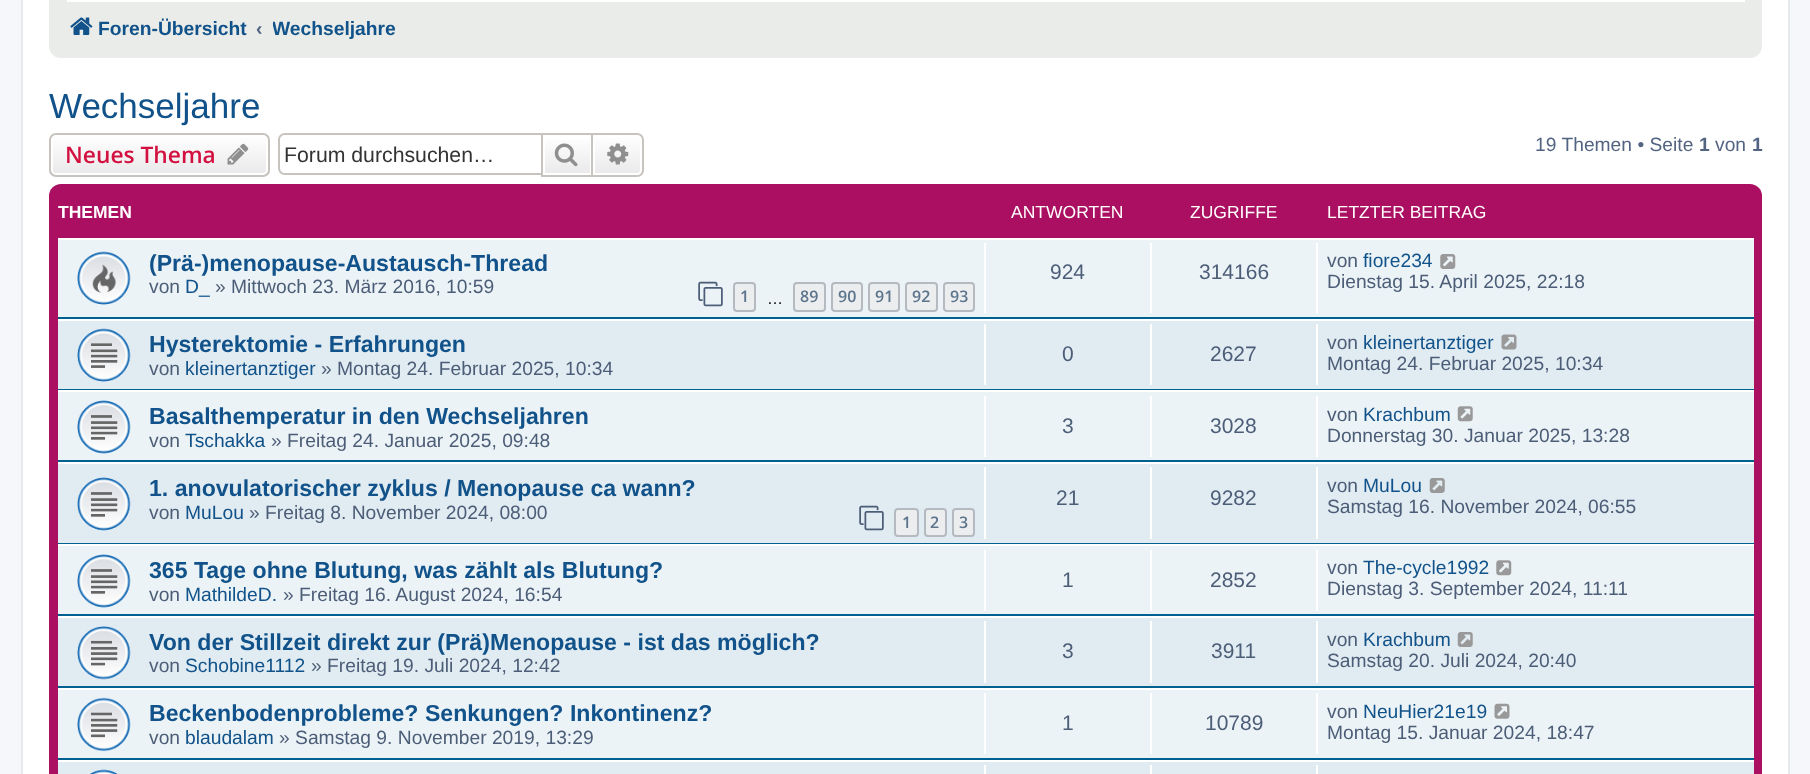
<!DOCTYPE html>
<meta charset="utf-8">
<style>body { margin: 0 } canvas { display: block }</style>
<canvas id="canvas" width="1810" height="774"></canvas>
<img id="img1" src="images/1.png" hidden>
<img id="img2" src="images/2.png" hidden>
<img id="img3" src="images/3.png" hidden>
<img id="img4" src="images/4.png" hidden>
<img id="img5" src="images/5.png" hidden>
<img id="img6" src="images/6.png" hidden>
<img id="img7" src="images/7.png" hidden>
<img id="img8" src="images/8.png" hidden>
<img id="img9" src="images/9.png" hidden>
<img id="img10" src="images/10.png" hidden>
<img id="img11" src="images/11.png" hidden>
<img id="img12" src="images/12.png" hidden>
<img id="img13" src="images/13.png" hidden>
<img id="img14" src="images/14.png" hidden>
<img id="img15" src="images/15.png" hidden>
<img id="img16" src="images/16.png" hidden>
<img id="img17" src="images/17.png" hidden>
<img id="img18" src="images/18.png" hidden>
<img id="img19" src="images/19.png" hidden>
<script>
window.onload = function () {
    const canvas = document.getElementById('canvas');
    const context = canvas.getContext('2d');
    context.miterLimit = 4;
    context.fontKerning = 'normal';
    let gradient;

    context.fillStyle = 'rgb(245, 247, 250)';
    context.fillRect(0, 0, 1810, 774);
    context.fillStyle = 'rgb(255, 255, 255)';
    context.beginPath();
    context.rect(22, -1, 1767, 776);
    context.fill();
    context.strokeStyle = 'rgb(230, 233, 237)';
    context.lineWidth = 2;
    context.stroke();
    context.fillStyle = 'rgb(234, 236, 233)';
    context.beginPath();
    context.roundRect(49, -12, 1713, 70, 12);
    context.fill();
    context.fillStyle = 'rgb(255, 255, 255)';
    context.fillRect(67, 0, 1678, 2);
    context.drawImage(document.getElementById('img1'), 70, 17, 23, 18);
    context.save();
    context.beginPath();
    context.roundRect(49, 133, 221, 44, 7);
    context.clip();
    gradient = context.createLinearGradient(159, 135, 159, 175);
    gradient.addColorStop(0, 'rgb(255, 255, 255)');
    gradient.addColorStop(1, 'rgb(233, 233, 233)');
    context.fillStyle = gradient;
    context.fillRect(49, 135, 221, 40);
    context.restore();
    context.beginPath();
    context.roundRect(52, 136, 215, 38, 4);
    context.strokeStyle = 'rgb(255, 255, 255)';
    context.stroke();
    context.beginPath();
    context.roundRect(50, 134, 219, 42, 6);
    context.strokeStyle = 'rgb(199, 195, 191)';
    context.stroke();
    context.drawImage(document.getElementById('img2'), 227, 143, 22, 22);
    context.fillStyle = 'rgb(199, 195, 191)';
    context.beginPath();
    context.moveTo(285, 133);
    context.lineTo(541, 133);
    context.lineTo(541, 175);
    context.lineTo(285, 175);
    context.bezierCurveTo(281, 175, 278, 172, 278, 168);
    context.lineTo(278, 140);
    context.bezierCurveTo(278, 136, 281, 133, 285, 133);
    context.closePath();
    context.moveTo(285, 135);
    context.lineTo(541, 135);
    context.lineTo(541, 173);
    context.lineTo(285, 173);
    context.bezierCurveTo(282, 173, 280, 171, 280, 168);
    context.lineTo(280, 140);
    context.bezierCurveTo(280, 137, 282, 135, 285, 135);
    context.closePath();
    context.fill('evenodd');
    gradient = context.createLinearGradient(567, 135, 567, 175);
    gradient.addColorStop(0, 'rgb(255, 255, 255)');
    gradient.addColorStop(1, 'rgb(233, 233, 233)');
    context.fillStyle = gradient;
    context.fillRect(545, 140, 45, 33);
    context.strokeRect(542, 134, 50, 42);
    context.drawImage(document.getElementById('img3'), 554, 143, 24, 24);
    gradient = context.createLinearGradient(618, 135, 618, 175);
    gradient.addColorStop(0, 'rgb(255, 255, 255)');
    gradient.addColorStop(1, 'rgb(233, 233, 233)');
    context.fillStyle = gradient;
    context.beginPath();
    context.roundRect(594, 136, 47, 38, [0, 4, 4, 0]);
    context.fill();
    context.strokeStyle = 'rgb(255, 255, 255)';
    context.stroke();
    context.fillStyle = 'rgb(199, 195, 191)';
    context.beginPath();
    context.moveTo(593, 133);
    context.lineTo(637, 133);
    context.bezierCurveTo(641, 133, 644, 136, 644, 140);
    context.lineTo(644, 170);
    context.bezierCurveTo(644, 174, 641, 177, 637, 177);
    context.lineTo(593, 177);
    context.closePath();
    context.moveTo(593, 135);
    context.lineTo(637, 135);
    context.bezierCurveTo(640, 135, 642, 137, 642, 140);
    context.lineTo(642, 170);
    context.bezierCurveTo(642, 173, 640, 175, 637, 175);
    context.lineTo(593, 175);
    context.closePath();
    context.fill('evenodd');
    context.drawImage(document.getElementById('img4'), 607, 143, 22, 22);
    context.fillStyle = 'rgb(170, 15, 98)';
    context.beginPath();
    context.roundRect(49, 184, 1713, 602, 12);
    context.fill();
    context.fillStyle = 'rgb(236, 243, 247)';
    context.fillRect(58, 240, 1696, 77);
    context.fillStyle = 'rgb(255, 255, 255)';
    context.fillRect(58, 238, 1696, 2);
    context.fillStyle = 'rgb(0, 96, 143)';
    context.fillRect(58, 317, 1696, 2);
    context.drawImage(document.getElementById('img5'), 77, 251, 54, 54);
    context.drawImage(document.getElementById('img6'), 698, 281, 25, 26);
    context.fillStyle = 'rgb(236, 237, 238)';
    context.beginPath();
    context.roundRect(734, 283, 21, 28, 3);
    context.fill();
    context.strokeStyle = 'rgb(180, 186, 192)';
    context.stroke();
    context.beginPath();
    context.roundRect(794, 283, 31, 28, 3);
    context.fill();
    context.stroke();
    context.beginPath();
    context.roundRect(832, 283, 30, 28, 3);
    context.fill();
    context.stroke();
    context.beginPath();
    context.roundRect(869, 283, 30, 28, 3);
    context.fill();
    context.stroke();
    context.beginPath();
    context.roundRect(906, 283, 31, 28, 3);
    context.fill();
    context.stroke();
    context.beginPath();
    context.roundRect(944, 283, 30, 28, 3);
    context.fill();
    context.stroke();
    context.fillStyle = 'rgb(255, 255, 255)';
    context.fillRect(984, 243, 2, 70);
    context.fillRect(1150, 243, 2, 70);
    context.fillRect(1316, 243, 2, 70);
    context.drawImage(document.getElementById('img7'), 1440, 254, 16, 15);
    context.fillStyle = 'rgb(225, 235, 242)';
    context.fillRect(58, 321, 1696, 68);
    context.fillStyle = 'rgb(255, 255, 255)';
    context.fillRect(58, 319, 1696, 2);
    context.fillStyle = 'rgb(0, 96, 143)';
    context.fillRect(58, 389, 1696, 1);
    context.drawImage(document.getElementById('img8'), 77, 328, 54, 54);
    context.fillStyle = 'rgb(255, 255, 255)';
    context.fillRect(984, 324, 2, 61);
    context.fillRect(1150, 324, 2, 61);
    context.fillRect(1316, 324, 2, 61);
    context.drawImage(document.getElementById('img9'), 1501, 334, 16, 16);
    context.fillStyle = 'rgb(236, 243, 247)';
    context.fillRect(58, 392, 1696, 68);
    context.fillStyle = 'rgb(255, 255, 255)';
    context.fillRect(58, 390, 1696, 2);
    context.fillStyle = 'rgb(0, 96, 143)';
    context.fillRect(58, 460, 1696, 2);
    context.drawImage(document.getElementById('img10'), 77, 400, 54, 54);
    context.fillStyle = 'rgb(255, 255, 255)';
    context.fillRect(984, 396, 2, 61);
    context.fillRect(1150, 396, 2, 61);
    context.fillRect(1316, 396, 2, 61);
    context.drawImage(document.getElementById('img11'), 1457, 406, 16, 16);
    context.fillStyle = 'rgb(225, 235, 242)';
    context.fillRect(58, 464, 1696, 79);
    context.fillStyle = 'rgb(255, 255, 255)';
    context.fillRect(58, 462, 1696, 2);
    context.fillStyle = 'rgb(0, 96, 143)';
    context.fillRect(58, 543, 1696, 1);
    context.drawImage(document.getElementById('img12'), 77, 477, 54, 54);
    context.drawImage(document.getElementById('img13'), 859, 505, 25, 26);
    context.fillStyle = 'rgb(236, 237, 238)';
    context.beginPath();
    context.roundRect(895, 509, 23, 27, 3);
    context.fill();
    context.stroke();
    context.beginPath();
    context.roundRect(925, 509, 21, 27, 3);
    context.fill();
    context.stroke();
    context.beginPath();
    context.roundRect(953, 509, 21, 27, 3);
    context.fill();
    context.stroke();
    context.fillStyle = 'rgb(255, 255, 255)';
    context.fillRect(984, 467, 2, 72);
    context.fillRect(1150, 467, 2, 72);
    context.fillRect(1316, 467, 2, 72);
    context.drawImage(document.getElementById('img14'), 1429, 478, 16, 15);
    context.fillStyle = 'rgb(236, 243, 247)';
    context.fillRect(58, 546, 1696, 68);
    context.fillStyle = 'rgb(255, 255, 255)';
    context.fillRect(58, 544, 1696, 2);
    context.fillStyle = 'rgb(0, 96, 143)';
    context.fillRect(58, 614, 1696, 2);
    context.drawImage(document.getElementById('img10'), 77, 554, 54, 54);
    context.fillStyle = 'rgb(255, 255, 255)';
    context.fillRect(984, 550, 2, 61);
    context.fillRect(1150, 550, 2, 61);
    context.fillRect(1316, 550, 2, 61);
    context.drawImage(document.getElementById('img15'), 1496, 560, 16, 16);
    context.fillStyle = 'rgb(225, 235, 242)';
    context.fillRect(58, 618, 1696, 68);
    context.fillStyle = 'rgb(255, 255, 255)';
    context.fillRect(58, 616, 1696, 2);
    context.fillStyle = 'rgb(0, 96, 143)';
    context.fillRect(58, 686, 1696, 2);
    context.drawImage(document.getElementById('img16'), 77, 626, 54, 54);
    context.fillStyle = 'rgb(255, 255, 255)';
    context.fillRect(984, 621, 2, 62);
    context.fillRect(1150, 621, 2, 62);
    context.fillRect(1316, 621, 2, 62);
    context.drawImage(document.getElementById('img14'), 1457, 632, 16, 15);
    context.fillStyle = 'rgb(236, 243, 247)';
    context.fillRect(58, 690, 1696, 68);
    context.fillStyle = 'rgb(255, 255, 255)';
    context.fillRect(58, 688, 1696, 2);
    context.fillStyle = 'rgb(0, 96, 143)';
    context.fillRect(58, 758, 1696, 2);
    context.drawImage(document.getElementById('img17'), 77, 697, 54, 55);
    context.fillStyle = 'rgb(255, 255, 255)';
    context.fillRect(984, 693, 2, 61);
    context.fillRect(1150, 693, 2, 61);
    context.fillRect(1316, 693, 2, 61);
    context.drawImage(document.getElementById('img18'), 1494, 703, 16, 16);
    context.fillStyle = 'rgb(225, 235, 242)';
    context.fillRect(58, 762, 1696, 12);
    context.fillStyle = 'rgb(255, 255, 255)';
    context.fillRect(58, 760, 1696, 2);
    context.drawImage(document.getElementById('img19'), 89, 769, 29, 5);
    context.fillRect(984, 765, 2, 9);
    context.fillRect(1150, 765, 2, 9);
    context.fillRect(1316, 765, 2, 9);
    context.font = 'bold 19.25px Liberation Sans';
    context.fillStyle = 'rgb(16, 82, 137)';
    context.fillText('Foren-Übersicht', 98, 35);
    context.fillStyle = 'rgb(83, 100, 130)';
    context.fillText('‹', 256, 35);
    context.save();
    context.beginPath();
    context.rect(273, 7, 123, 42);
    context.clip();
    context.fillStyle = 'rgb(16, 82, 137)';
    context.fillText('Wechseljahre', 272, 35);
    context.restore();
    context.font = '35px Liberation Sans';
    context.fillStyle = 'rgb(16, 82, 137)';
    context.fillText('Wechseljahre', 49, 118);
    context.font = '600 22.75px Open Sans';
    context.fillStyle = 'rgb(211, 17, 65)';
    context.fillText('Neues Thema', 65, 163);
    context.font = '21.25px Liberation Sans';
    context.fillStyle = 'rgb(51, 51, 51)';
    context.fillText('Forum durchsuchen…', 284, 162);
    context.font = '19.25px Liberation Sans';
    context.fillStyle = 'rgb(83, 100, 130)';
    context.fillText('19 Themen • Seite', 1535, 151);
    context.font = 'bold 19.25px Liberation Sans';
    context.fillText('1', 1699, 151);
    context.font = '19.25px Liberation Sans';
    context.fillText('von', 1715, 151);
    context.font = 'bold 19.25px Liberation Sans';
    context.fillText('1', 1752, 151);
    context.font = 'bold 17.5px Liberation Sans';
    context.fillStyle = 'rgb(255, 255, 255)';
    context.fillText('THEMEN', 58, 218);
    context.font = '17.5px Liberation Sans';
    context.fillText('ANTWORTEN', 1011, 218);
    context.fillText('ZUGRIFFE', 1190, 218);
    context.fillText('LETZTER BEITRAG', 1327, 218);
    context.font = 'bold 23.1px Liberation Sans';
    context.fillStyle = 'rgb(16, 82, 137)';
    context.fillText('(Prä-)menopause-Austausch-Thread', 149, 271);
    context.font = '19.25px Liberation Sans';
    context.fillStyle = 'rgb(76, 93, 119)';
    context.fillText('von', 149, 293);
    context.fillStyle = 'rgb(16, 82, 137)';
    context.fillText('D_', 185, 293);
    context.fillStyle = 'rgb(76, 93, 119)';
    context.fillText('» Mittwoch 23. März 2016, 10:59', 215, 293);
    context.font = '600 16px Open Sans';
    context.fillStyle = 'rgb(92, 117, 140)';
    context.fillText('1', 740, 302);
    context.font = '16px Liberation Sans';
    context.fillStyle = 'rgb(0, 0, 0)';
    context.fillText('…', 767, 304);
    context.font = '600 16px Open Sans';
    context.fillStyle = 'rgb(92, 117, 140)';
    context.fillText('89', 800, 302);
    context.fillText('90', 838, 302);
    context.fillText('91', 875, 302);
    context.fillText('92', 912, 302);
    context.fillText('93', 950, 302);
    context.font = '21px Liberation Sans';
    context.fillStyle = 'rgb(76, 93, 119)';
    context.fillText('924', 1050, 279);
    context.fillText('314166', 1199, 279);
    context.font = '19.25px Liberation Sans';
    context.fillText('von', 1327, 267);
    context.fillStyle = 'rgb(16, 82, 137)';
    context.fillText('fiore234', 1363, 267);
    context.fillStyle = 'rgb(76, 93, 119)';
    context.fillText('Dienstag 15. April 2025, 22:18', 1327, 288);
    context.font = 'bold 23.1px Liberation Sans';
    context.fillStyle = 'rgb(16, 82, 137)';
    context.fillText('Hysterektomie - Erfahrungen', 149, 352);
    context.font = '19.25px Liberation Sans';
    context.fillStyle = 'rgb(76, 93, 119)';
    context.fillText('von', 149, 375);
    context.fillStyle = 'rgb(16, 82, 137)';
    context.fillText('kleinertanztiger', 185, 375);
    context.fillStyle = 'rgb(76, 93, 119)';
    context.fillText('» Montag 24. Februar 2025, 10:34', 321, 375);
    context.font = '21px Liberation Sans';
    context.fillText('0', 1062, 361);
    context.fillText('2627', 1210, 361);
    context.font = '19.25px Liberation Sans';
    context.fillText('von', 1327, 349);
    context.fillStyle = 'rgb(16, 82, 137)';
    context.fillText('kleinertanztiger', 1363, 349);
    context.fillStyle = 'rgb(76, 93, 119)';
    context.fillText('Montag 24. Februar 2025, 10:34', 1327, 370);
    context.font = 'bold 23.1px Liberation Sans';
    context.fillStyle = 'rgb(16, 82, 137)';
    context.fillText('Basalthemperatur in den Wechseljahren', 149, 424);
    context.font = '19.25px Liberation Sans';
    context.fillStyle = 'rgb(76, 93, 119)';
    context.fillText('von', 149, 447);
    context.fillStyle = 'rgb(16, 82, 137)';
    context.fillText('Tschakka', 185, 447);
    context.fillStyle = 'rgb(76, 93, 119)';
    context.fillText('» Freitag 24. Januar 2025, 09:48', 271, 447);
    context.font = '21px Liberation Sans';
    context.fillText('3', 1062, 433);
    context.fillText('3028', 1210, 433);
    context.font = '19.25px Liberation Sans';
    context.fillText('von', 1327, 421);
    context.fillStyle = 'rgb(16, 82, 137)';
    context.fillText('Krachbum', 1363, 421);
    context.fillStyle = 'rgb(76, 93, 119)';
    context.fillText('Donnerstag 30. Januar 2025, 13:28', 1327, 442);
    context.font = 'bold 23.1px Liberation Sans';
    context.fillStyle = 'rgb(16, 82, 137)';
    context.fillText('1. anovulatorischer zyklus / Menopause ca wann?', 149, 496);
    context.font = '19.25px Liberation Sans';
    context.fillStyle = 'rgb(76, 93, 119)';
    context.fillText('von', 149, 519);
    context.fillStyle = 'rgb(16, 82, 137)';
    context.fillText('MuLou', 185, 519);
    context.fillStyle = 'rgb(76, 93, 119)';
    context.fillText('» Freitag 8. November 2024, 08:00', 249, 519);
    context.font = '600 16px Open Sans';
    context.fillStyle = 'rgb(92, 117, 140)';
    context.fillText('1', 902, 528);
    context.fillText('2', 930, 528);
    context.fillText('3', 959, 528);
    context.font = '21px Liberation Sans';
    context.fillStyle = 'rgb(76, 93, 119)';
    context.fillText('21', 1056, 505);
    context.fillText('9282', 1210, 505);
    context.font = '19.25px Liberation Sans';
    context.fillText('von', 1327, 492);
    context.fillStyle = 'rgb(16, 82, 137)';
    context.fillText('MuLou', 1363, 492);
    context.fillStyle = 'rgb(76, 93, 119)';
    context.fillText('Samstag 16. November 2024, 06:55', 1327, 513);
    context.font = 'bold 23.1px Liberation Sans';
    context.fillStyle = 'rgb(16, 82, 137)';
    context.fillText('365 Tage ohne Blutung, was zählt als Blutung?', 149, 578);
    context.font = '19.25px Liberation Sans';
    context.fillStyle = 'rgb(76, 93, 119)';
    context.fillText('von', 149, 601);
    context.fillStyle = 'rgb(16, 82, 137)';
    context.fillText('MathildeD.', 185, 601);
    context.fillStyle = 'rgb(76, 93, 119)';
    context.fillText('» Freitag 16. August 2024, 16:54', 283, 601);
    context.font = '21px Liberation Sans';
    context.fillText('1', 1062, 587);
    context.fillText('2852', 1210, 587);
    context.font = '19.25px Liberation Sans';
    context.fillText('von', 1327, 574);
    context.fillStyle = 'rgb(16, 82, 137)';
    context.fillText('The-cycle1992', 1363, 574);
    context.fillStyle = 'rgb(76, 93, 119)';
    context.fillText('Dienstag 3. September 2024, 11:11', 1327, 595);
    context.font = 'bold 23.1px Liberation Sans';
    context.fillStyle = 'rgb(16, 82, 137)';
    context.fillText('Von der Stillzeit direkt zur (Prä)Menopause - ist das möglich?', 149, 650);
    context.font = '19.25px Liberation Sans';
    context.fillStyle = 'rgb(76, 93, 119)';
    context.fillText('von', 149, 672);
    context.fillStyle = 'rgb(16, 82, 137)';
    context.fillText('Schobine1112', 185, 672);
    context.fillStyle = 'rgb(76, 93, 119)';
    context.fillText('» Freitag 19. Juli 2024, 12:42', 311, 672);
    context.font = '21px Liberation Sans';
    context.fillText('3', 1062, 658);
    context.fillText('3911', 1211, 658);
    context.font = '19.25px Liberation Sans';
    context.fillText('von', 1327, 646);
    context.fillStyle = 'rgb(16, 82, 137)';
    context.fillText('Krachbum', 1363, 646);
    context.fillStyle = 'rgb(76, 93, 119)';
    context.fillText('Samstag 20. Juli 2024, 20:40', 1327, 667);
    context.font = 'bold 23.1px Liberation Sans';
    context.fillStyle = 'rgb(16, 82, 137)';
    context.fillText('Beckenbodenprobleme? Senkungen? Inkontinenz?', 149, 721);
    context.font = '19.25px Liberation Sans';
    context.fillStyle = 'rgb(76, 93, 119)';
    context.fillText('von', 149, 744);
    context.fillStyle = 'rgb(16, 82, 137)';
    context.fillText('blaudalam', 185, 744);
    context.fillStyle = 'rgb(76, 93, 119)';
    context.fillText('» Samstag 9. November 2019, 13:29', 279, 744);
    context.font = '21px Liberation Sans';
    context.fillText('1', 1062, 730);
    context.fillText('10789', 1205, 730);
    context.font = '19.25px Liberation Sans';
    context.fillText('von', 1327, 718);
    context.fillStyle = 'rgb(16, 82, 137)';
    context.fillText('NeuHier21e19', 1363, 718);
    context.fillStyle = 'rgb(76, 93, 119)';
    context.fillText('Montag 15. Januar 2024, 18:47', 1327, 739);
};
</script>
